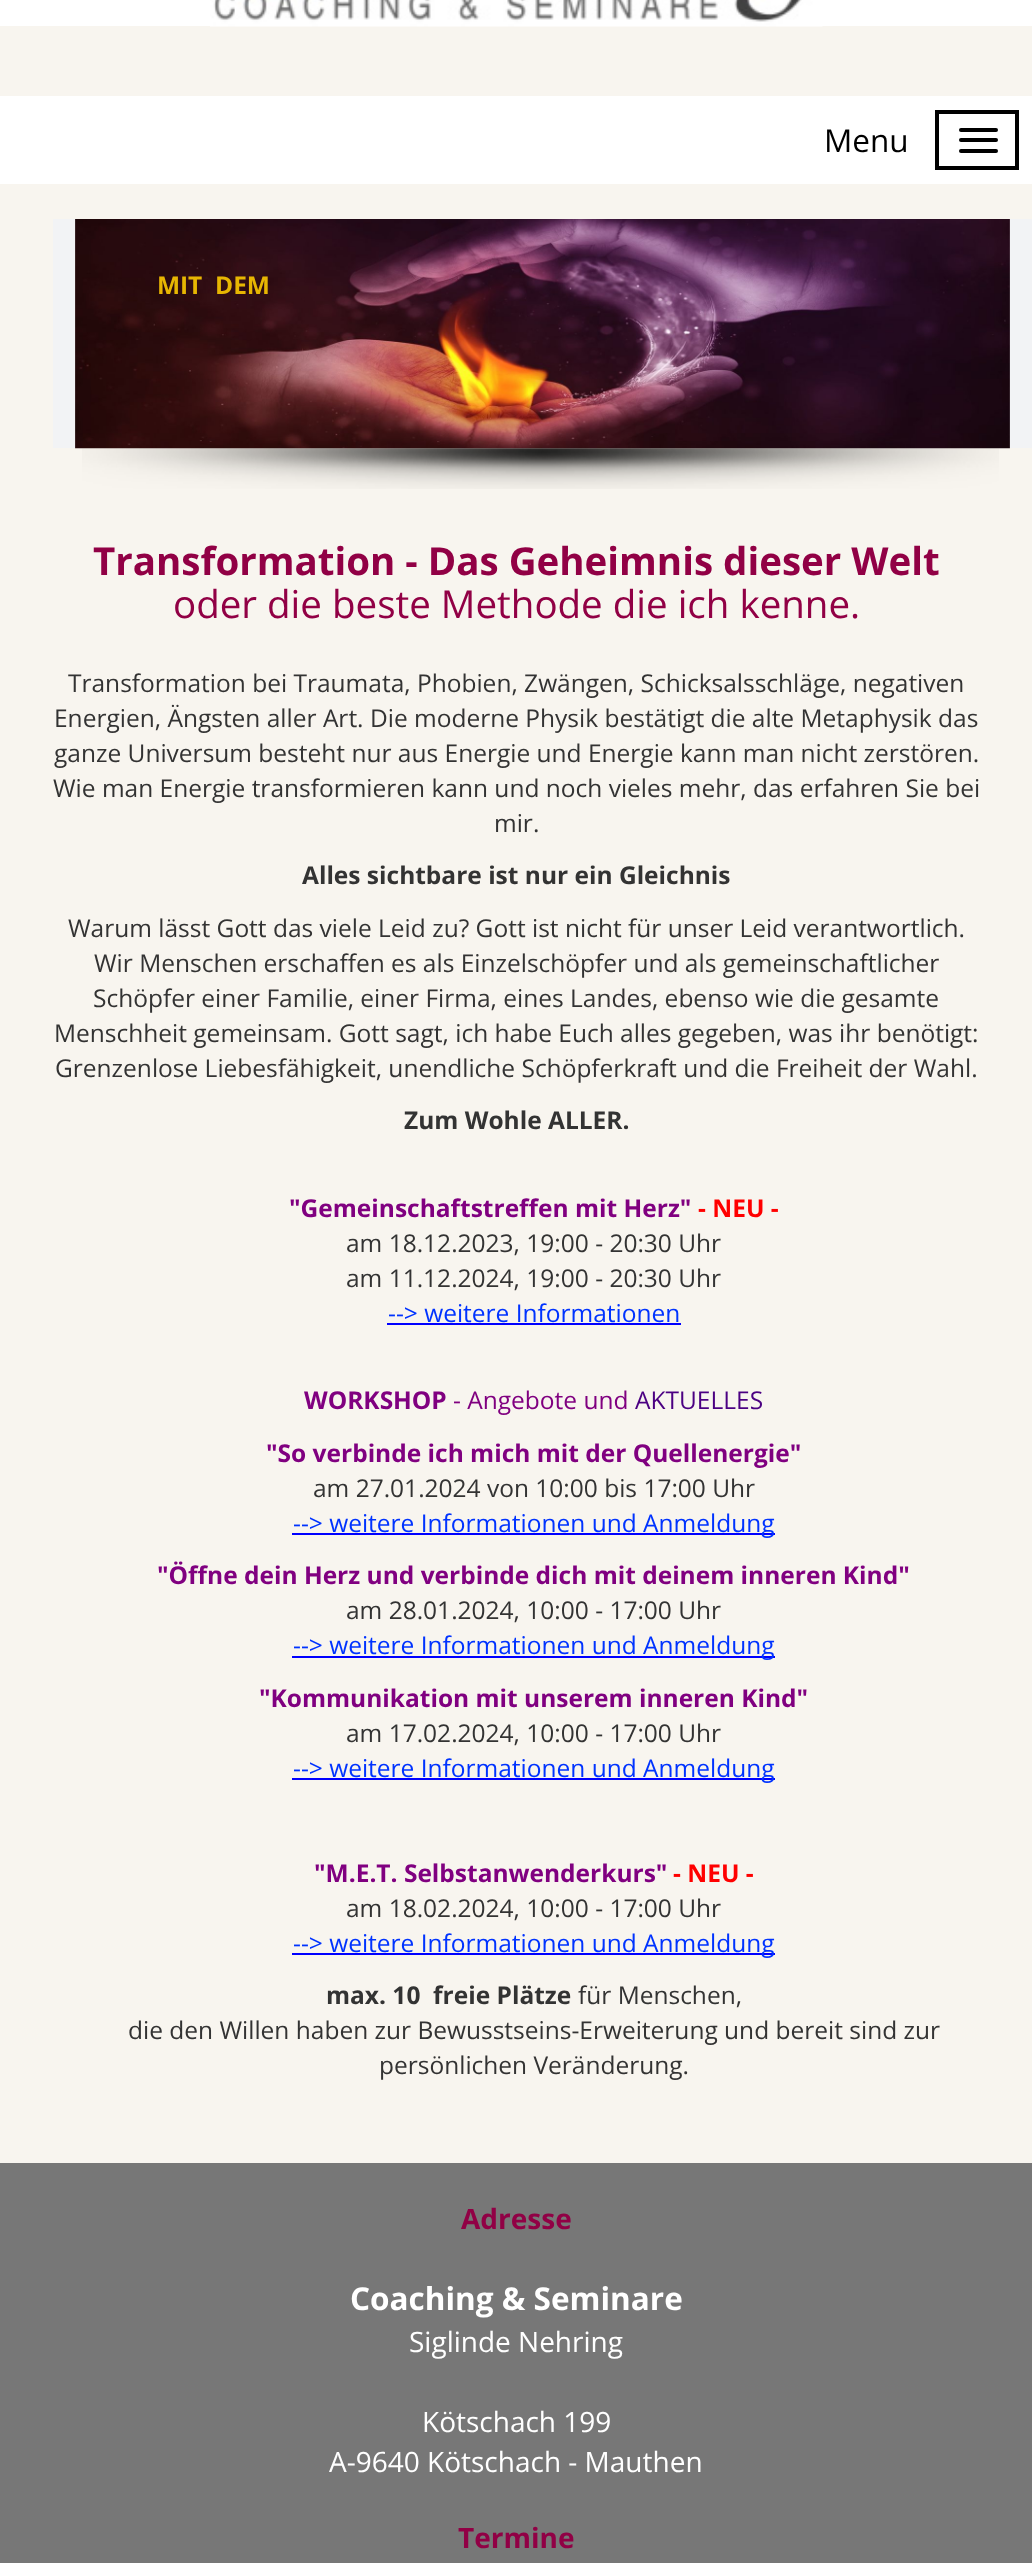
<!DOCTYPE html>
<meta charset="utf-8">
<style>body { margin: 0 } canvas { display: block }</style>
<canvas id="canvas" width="1032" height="2563"></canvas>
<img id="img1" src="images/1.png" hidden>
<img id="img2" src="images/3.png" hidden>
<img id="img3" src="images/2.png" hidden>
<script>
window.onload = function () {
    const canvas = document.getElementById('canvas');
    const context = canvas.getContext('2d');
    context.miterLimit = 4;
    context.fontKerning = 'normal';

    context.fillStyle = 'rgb(248, 245, 239)';
    context.fillRect(0, 0, 1032, 2563);
    context.fillStyle = 'rgb(255, 255, 255)';
    context.fillRect(0, 0, 1032, 26);
    context.drawImage(document.getElementById('img1'), 210, 0, 613, 27);
    context.fillRect(0, 96, 1032, 88);
    context.strokeStyle = 'rgb(0, 0, 0)';
    context.lineWidth = 4;
    context.strokeRect(937, 112, 80, 56);
    context.fillStyle = 'rgb(0, 0, 0)';
    context.beginPath();
    context.roundRect(959, 128, 39, 4, 2);
    context.fill();
    context.beginPath();
    context.roundRect(959, 138, 39, 4, 2);
    context.fill();
    context.beginPath();
    context.roundRect(959, 149, 39, 4, 2);
    context.fill();
    context.fillStyle = 'rgb(242, 243, 245)';
    context.fillRect(53, 219, 979, 229);
    context.drawImage(document.getElementById('img2'), 82, 448, 917, 41);
    context.drawImage(document.getElementById('img3'), 75, 219, 935, 230);
    context.fillStyle = 'rgb(0, 0, 255)';
    context.fillRect(387, 1323, 294, 2);
    context.fillRect(292, 1533, 483, 2);
    context.fillRect(292, 1656, 483, 2);
    context.fillRect(292, 1778, 483, 2);
    context.fillRect(292, 1953, 483, 2);
    context.fillStyle = 'rgb(119, 119, 119)';
    context.fillRect(0, 2163, 1032, 400);
    context.font = '31.5px Open Sans';
    context.fillStyle = 'rgb(0, 0, 0)';
    context.fillText('Menu', 824, 152);
    context.font = 'bold 24.5px Open Sans';
    context.fillStyle = 'rgb(231, 182, 2)';
    context.fillText('M', 157, 294);
    context.fillText('IT', 180, 294);
    context.fillText('DEM', 215, 294);
    context.font = 'bold 38.5px Open Sans';
    context.fillStyle = 'rgb(145, 0, 69)';
    context.fillText('Transformation - Das Geheimnis dieser Welt', 93, 575);
    context.font = '38.5px Open Sans';
    context.fillText('oder die beste Methode die ich kenne.', 173, 618);
    context.font = '24.5px Open Sans';
    context.fillStyle = 'rgb(51, 51, 51)';
    context.fillText('Transformation bei Traumata, Phobien, Zwängen, Schicksalsschläge, negativen', 68, 692);
    context.fillText('Energien, Ängsten aller Art. Die moderne Physik bestätigt die alte Metaphysik das', 54, 727);
    context.fillText('ganze Universum besteht nur aus Energie und Energie kann man nicht zerstören.', 54, 762);
    context.fillText('Wie man Energie transformieren kann und noch vieles mehr, das erfahren Sie bei', 53, 797);
    context.fillText('mir.', 494, 832);
    context.font = 'bold 24.5px Open Sans';
    context.fillText('Alles sichtbare ist nur ein Gleichnis', 302, 884);
    context.font = '24.5px Open Sans';
    context.fillText('Warum lässt Gott das viele Leid zu? Gott ist nicht für unser Leid verantwortlich.', 68, 937);
    context.fillText('Wir Menschen erschaffen es als Einzelschöpfer und als gemeinschaftlicher', 94, 972);
    context.fillText('Schöpfer einer Familie, einer Firma, eines Landes, ebenso wie die gesamte', 93, 1007);
    context.fillText('Menschheit gemeinsam. Gott sagt, ich habe Euch alles gegeben, was ihr benötigt:', 54, 1042);
    context.fillText('Grenzenlose Liebesfähigkeit, unendliche Schöpferkraft und die Freiheit der Wahl.', 55, 1077);
    context.font = 'bold 24.5px Open Sans';
    context.fillText('Zum Wohle ALLER.', 404, 1129);
    context.fillStyle = 'rgb(128, 0, 128)';
    context.fillText('"Gemeinschaftstreffen mit Herz"', 289, 1217);
    context.fillStyle = 'rgb(255, 0, 0)';
    context.fillText('- NEU -', 698, 1217);
    context.font = '24.5px Open Sans';
    context.fillStyle = 'rgb(51, 51, 51)';
    context.fillText('am 18.12.2023, 19:00 - 20:30 Uhr', 346, 1252);
    context.fillText('am 11.12.2024, 19:00 - 20:30 Uhr', 346, 1287);
    context.fillStyle = 'rgb(0, 51, 255)';
    context.fillText('--> weitere Informationen', 388, 1322);
    context.font = 'bold 24.5px Open Sans';
    context.fillStyle = 'rgb(128, 0, 128)';
    context.fillText('WORKSHOP', 304, 1409);
    context.font = '24.5px Open Sans';
    context.fillText('- Angebote und', 453, 1409);
    context.fillStyle = 'rgb(75, 0, 130)';
    context.fillText('AKTUELLES', 635, 1409);
    context.font = 'bold 24.5px Open Sans';
    context.fillStyle = 'rgb(128, 0, 128)';
    context.fillText('"So verbinde ich mich mit der Quellenergie"', 266, 1462);
    context.font = '24.5px Open Sans';
    context.fillStyle = 'rgb(51, 51, 51)';
    context.fillText('am 27.01.2024 von 10:00 bis 17:00 Uhr', 313, 1497);
    context.fillStyle = 'rgb(0, 51, 255)';
    context.fillText('--> weitere Informationen und Anmeldung', 293, 1532);
    context.font = 'bold 24.5px Open Sans';
    context.fillStyle = 'rgb(128, 0, 128)';
    context.fillText('"Öffne dein Herz und verbinde dich mit deinem inneren Kind"', 157, 1584);
    context.font = '24.5px Open Sans';
    context.fillStyle = 'rgb(51, 51, 51)';
    context.fillText('am 28.01.2024, 10:00 - 17:00 Uhr', 346, 1619);
    context.fillStyle = 'rgb(0, 51, 255)';
    context.fillText('--> weitere Informationen und Anmeldung', 293, 1654);
    context.font = 'bold 24.5px Open Sans';
    context.fillStyle = 'rgb(128, 0, 128)';
    context.fillText('"Kommunikation mit unserem inneren Kind"', 259, 1707);
    context.font = '24.5px Open Sans';
    context.fillStyle = 'rgb(51, 51, 51)';
    context.fillText('am 17.02.2024, 10:00 - 17:00 Uhr', 346, 1742);
    context.fillStyle = 'rgb(0, 51, 255)';
    context.fillText('--> weitere Informationen und Anmeldung', 293, 1777);
    context.font = 'bold 24.5px Open Sans';
    context.fillStyle = 'rgb(128, 0, 128)';
    context.fillText('"M.E.T. Selbstanwenderkurs"', 314, 1882);
    context.fillStyle = 'rgb(255, 0, 0)';
    context.fillText('- NEU -', 673, 1882);
    context.font = '24.5px Open Sans';
    context.fillStyle = 'rgb(51, 51, 51)';
    context.fillText('am 18.02.2024, 10:00 - 17:00 Uhr', 346, 1917);
    context.fillStyle = 'rgb(0, 51, 255)';
    context.fillText('--> weitere Informationen und Anmeldung', 293, 1952);
    context.font = 'bold 24.5px Open Sans';
    context.fillStyle = 'rgb(51, 51, 51)';
    context.fillText('max. 10  freie Plätze', 326, 2004);
    context.font = '24.5px Open Sans';
    context.fillText('für Menschen,', 578, 2004);
    context.fillText('die den Willen haben zur Bewusstseins-Erweiterung und bereit sind zur', 128, 2039);
    context.fillText('persönlichen Veränderung.', 379, 2074);
    context.font = 'bold 28px Open Sans';
    context.fillStyle = 'rgb(145, 0, 69)';
    context.fillText('Adresse', 461, 2229);
    context.font = 'bold 31.5px Open Sans';
    context.fillStyle = 'rgb(255, 255, 255)';
    context.fillText('Coaching & Seminare', 350, 2310);
    context.font = '28px Open Sans';
    context.fillText('Siglinde Nehring', 409, 2352);
    context.fillText('Kötschach 199', 422, 2432);
    context.fillText('A-9640 Kötschach - Mauthen', 329, 2472);
    context.font = 'bold 28px Open Sans';
    context.fillStyle = 'rgb(145, 0, 69)';
    context.fillText('Termine', 458, 2548);
};
</script>
